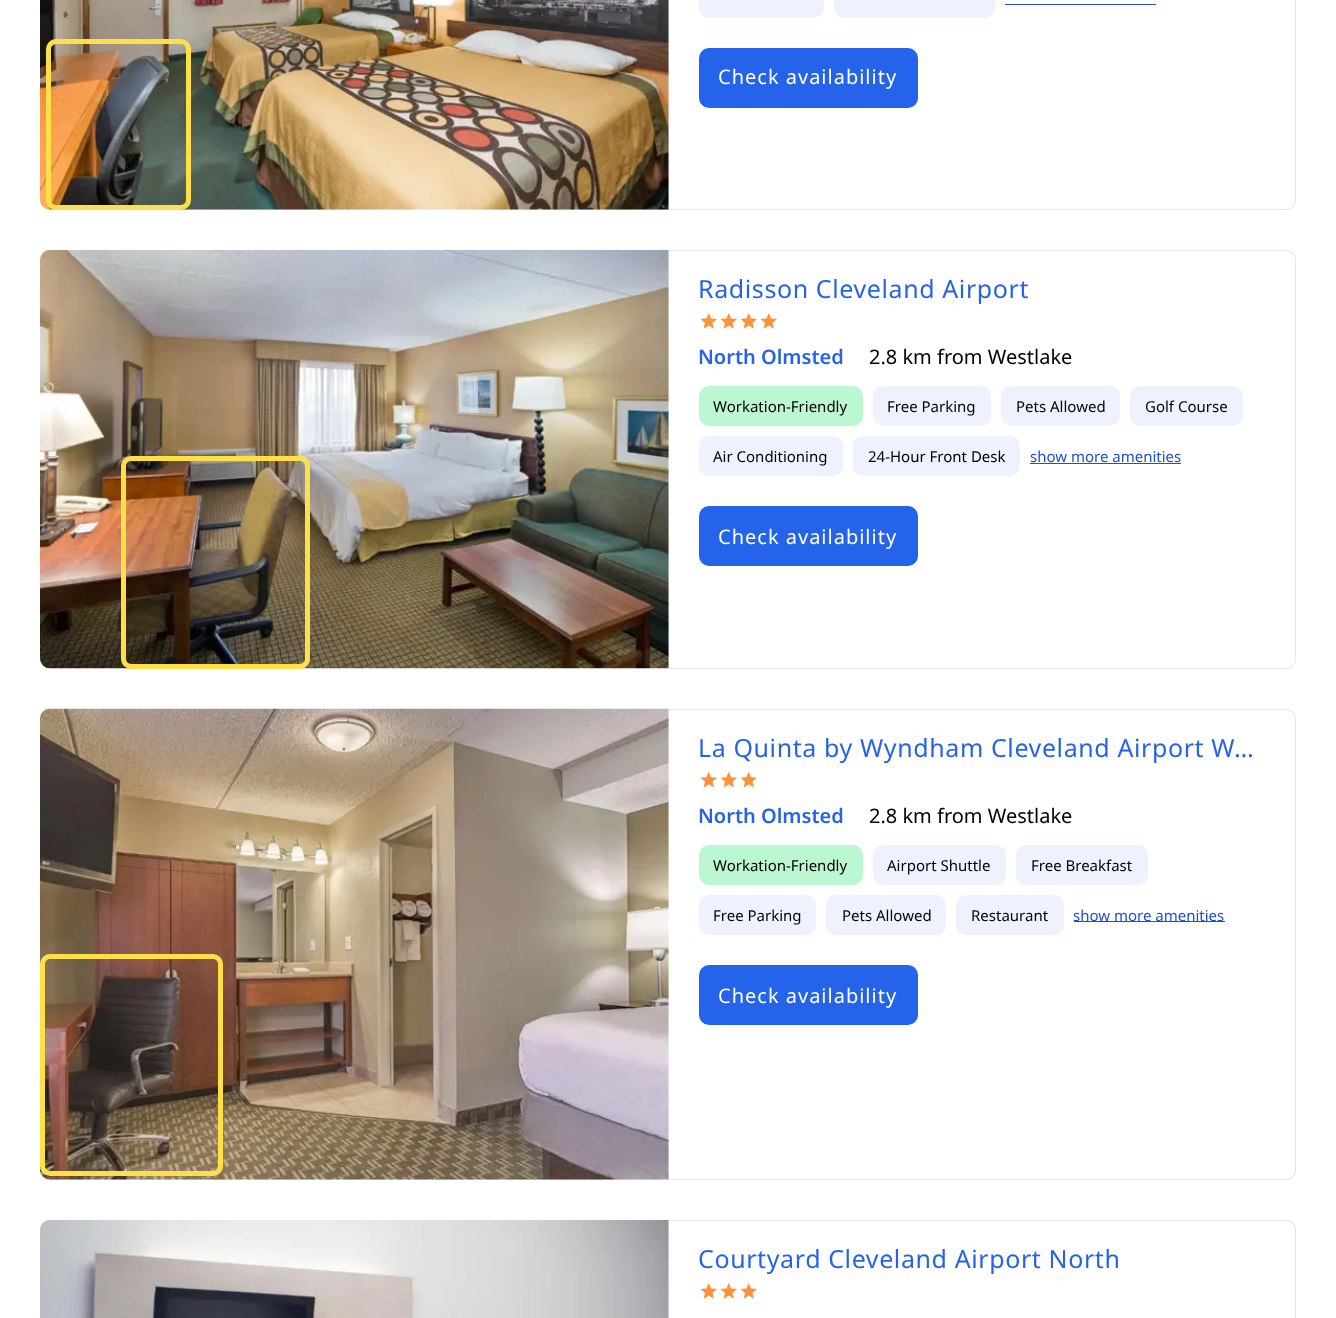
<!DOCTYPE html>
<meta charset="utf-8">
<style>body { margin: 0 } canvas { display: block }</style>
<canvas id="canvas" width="1336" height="1318"></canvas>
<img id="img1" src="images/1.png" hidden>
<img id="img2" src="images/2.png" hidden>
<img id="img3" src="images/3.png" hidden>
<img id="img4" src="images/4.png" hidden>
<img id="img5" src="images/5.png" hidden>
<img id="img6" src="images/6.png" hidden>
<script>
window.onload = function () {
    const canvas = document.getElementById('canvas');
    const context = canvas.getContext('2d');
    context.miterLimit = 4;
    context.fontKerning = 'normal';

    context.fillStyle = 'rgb(255, 255, 255)';
    context.fillRect(0, 0, 1336, 1318);
    context.drawImage(document.getElementById('img1'), 40, 0, 629, 210);
    context.beginPath();
    context.roundRect(48.5, 41.5, 140, 166, 7.5);
    context.strokeStyle = 'rgb(253, 224, 71)';
    context.lineWidth = 5;
    context.stroke();
    context.fillStyle = 'rgb(226, 232, 240)';
    context.beginPath();
    context.moveTo(669, -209);
    context.lineTo(1286, -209);
    context.bezierCurveTo(1292, -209, 1296, -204, 1296, -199);
    context.lineTo(1296, 200);
    context.bezierCurveTo(1296, 206, 1292, 210, 1286, 210);
    context.lineTo(669, 210);
    context.closePath();
    context.moveTo(669, -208);
    context.lineTo(1286, -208);
    context.bezierCurveTo(1291, -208, 1295, -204, 1295, -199);
    context.lineTo(1295, 200);
    context.bezierCurveTo(1295, 205, 1291, 209, 1286, 209);
    context.lineTo(669, 209);
    context.closePath();
    context.fill('evenodd');
    context.fillStyle = 'rgb(238, 242, 255)';
    context.beginPath();
    context.roundRect(699, -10, 125, 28, 10);
    context.fill();
    context.beginPath();
    context.roundRect(834, -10, 161, 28, 10);
    context.fill();
    context.fillStyle = 'rgb(29, 78, 216)';
    context.fillRect(1005, 4, 151, 1);
    context.fillStyle = 'rgb(37, 99, 235)';
    context.beginPath();
    context.roundRect(699, 48, 219, 60, 10);
    context.fill();
    context.drawImage(document.getElementById('img2'), 40, 249, 629, 420);
    context.beginPath();
    context.roundRect(123.5, 458.5, 184, 208, 7.5);
    context.stroke();
    context.fillStyle = 'rgb(226, 232, 240)';
    context.beginPath();
    context.moveTo(669, 250);
    context.lineTo(1286, 250);
    context.bezierCurveTo(1292, 250, 1296, 254, 1296, 260);
    context.lineTo(1296, 659);
    context.bezierCurveTo(1296, 664, 1292, 669, 1286, 669);
    context.lineTo(669, 669);
    context.closePath();
    context.moveTo(669, 251);
    context.lineTo(1286, 251);
    context.bezierCurveTo(1291, 251, 1295, 255, 1295, 260);
    context.lineTo(1295, 659);
    context.bezierCurveTo(1295, 664, 1291, 668, 1286, 668);
    context.lineTo(669, 668);
    context.closePath();
    context.fill('evenodd');
    context.drawImage(document.getElementById('img3'), 700, 313, 17, 16);
    context.drawImage(document.getElementById('img3'), 720, 313, 17, 16);
    context.drawImage(document.getElementById('img3'), 740, 313, 17, 16);
    context.drawImage(document.getElementById('img3'), 760, 313, 17, 16);
    context.fillStyle = 'rgb(187, 247, 208)';
    context.beginPath();
    context.roundRect(699, 386, 164, 40, 10);
    context.fill();
    context.fillStyle = 'rgb(238, 242, 255)';
    context.beginPath();
    context.roundRect(873, 386, 118, 40, 10);
    context.fill();
    context.beginPath();
    context.roundRect(1001, 386, 119, 40, 10);
    context.fill();
    context.beginPath();
    context.roundRect(1130, 386, 113, 40, 10);
    context.fill();
    context.beginPath();
    context.roundRect(699, 436, 144, 40, 10);
    context.fill();
    context.beginPath();
    context.roundRect(853, 436, 167, 40, 10);
    context.fill();
    context.fillStyle = 'rgb(29, 78, 216)';
    context.fillRect(1030, 463, 151, 1);
    context.fillStyle = 'rgb(37, 99, 235)';
    context.beginPath();
    context.roundRect(699, 506, 219, 60, 10);
    context.fill();
    context.drawImage(document.getElementById('img4'), 40, 708, 629, 472);
    context.beginPath();
    context.roundRect(42.5, 956.5, 178, 217, 7.5);
    context.stroke();
    context.fillStyle = 'rgb(226, 232, 240)';
    context.beginPath();
    context.moveTo(669, 709);
    context.lineTo(1286, 709);
    context.bezierCurveTo(1292, 709, 1296, 713, 1296, 719);
    context.lineTo(1296, 1170);
    context.bezierCurveTo(1296, 1176, 1292, 1180, 1286, 1180);
    context.lineTo(669, 1180);
    context.closePath();
    context.moveTo(669, 710);
    context.lineTo(1286, 710);
    context.bezierCurveTo(1291, 710, 1295, 714, 1295, 719);
    context.lineTo(1295, 1170);
    context.bezierCurveTo(1295, 1175, 1291, 1179, 1286, 1179);
    context.lineTo(669, 1179);
    context.closePath();
    context.fill('evenodd');
    context.drawImage(document.getElementById('img5'), 700, 771, 17, 17);
    context.drawImage(document.getElementById('img5'), 720, 771, 17, 17);
    context.drawImage(document.getElementById('img5'), 740, 771, 17, 17);
    context.fillStyle = 'rgb(187, 247, 208)';
    context.beginPath();
    context.roundRect(699, 845, 164, 40, 10);
    context.fill();
    context.fillStyle = 'rgb(238, 242, 255)';
    context.beginPath();
    context.roundRect(873, 845, 133, 40, 10);
    context.fill();
    context.beginPath();
    context.roundRect(1016, 845, 132, 40, 10);
    context.fill();
    context.beginPath();
    context.roundRect(699, 895, 117, 40, 10);
    context.fill();
    context.beginPath();
    context.roundRect(826, 895, 120, 40, 10);
    context.fill();
    context.beginPath();
    context.roundRect(956, 895, 108, 40, 10);
    context.fill();
    context.fillStyle = 'rgb(29, 78, 216)';
    context.fillRect(1074, 921, 151, 1);
    context.fillStyle = 'rgb(37, 99, 235)';
    context.beginPath();
    context.roundRect(699, 965, 219, 60, 10);
    context.fill();
    context.drawImage(document.getElementById('img6'), 40, 1219, 629, 99);
    context.fillStyle = 'rgb(226, 232, 240)';
    context.beginPath();
    context.moveTo(669, 1220);
    context.lineTo(1286, 1220);
    context.bezierCurveTo(1292, 1220, 1296, 1224, 1296, 1230);
    context.lineTo(1296, 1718);
    context.bezierCurveTo(1296, 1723, 1292, 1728, 1286, 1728);
    context.lineTo(669, 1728);
    context.closePath();
    context.moveTo(669, 1221);
    context.lineTo(1286, 1221);
    context.bezierCurveTo(1291, 1221, 1295, 1225, 1295, 1230);
    context.lineTo(1295, 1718);
    context.bezierCurveTo(1295, 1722, 1291, 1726, 1286, 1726);
    context.lineTo(669, 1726);
    context.closePath();
    context.fill('evenodd');
    context.drawImage(document.getElementById('img3'), 700, 1283, 17, 16);
    context.drawImage(document.getElementById('img3'), 720, 1283, 17, 16);
    context.drawImage(document.getElementById('img3'), 740, 1283, 17, 16);
    context.letterSpacing = '1px';
    context.font = '20px Noto Sans';
    context.fillStyle = 'rgb(255, 255, 255)';
    context.fillText('Check availability', 718, 84);
    context.letterSpacing = '0.6px';
    context.font = '25px Noto Sans';
    context.fillStyle = 'rgb(37, 99, 235)';
    context.fillText('Radisson Cleveland Airport', 698, 298);
    context.letterSpacing = '0px';
    context.font = '600 20px Noto Sans';
    context.fillText('North Olmsted', 698, 364);
    context.font = '20px Noto Sans';
    context.fillStyle = 'rgb(0, 0, 0)';
    context.fillText('2.8 km from Westlake', 869, 364);
    context.font = '15px Noto Sans';
    context.fillText('Workation-Friendly', 713, 412);
    context.fillText('Free Parking', 887, 412);
    context.fillText('Pets Allowed', 1016, 412);
    context.fillText('Golf Course', 1145, 412);
    context.fillText('Air Conditioning', 713, 462);
    context.fillText('24-Hour Front Desk', 868, 462);
    context.fillStyle = 'rgb(29, 78, 216)';
    context.fillText('show more amenities', 1030, 462);
    context.letterSpacing = '1px';
    context.font = '20px Noto Sans';
    context.fillStyle = 'rgb(255, 255, 255)';
    context.fillText('Check availability', 718, 544);
    context.letterSpacing = '0.6px';
    context.font = '25px Noto Sans';
    context.fillStyle = 'rgb(37, 99, 235)';
    context.fillText('La Quinta by Wyndham Cleveland Airport W…', 698, 757);
    context.letterSpacing = '0px';
    context.font = '600 20px Noto Sans';
    context.fillText('North Olmsted', 698, 823);
    context.font = '20px Noto Sans';
    context.fillStyle = 'rgb(0, 0, 0)';
    context.fillText('2.8 km from Westlake', 869, 823);
    context.font = '15px Noto Sans';
    context.fillText('Workation-Friendly', 713, 871);
    context.fillText('Airport Shuttle', 887, 871);
    context.fillText('Free Breakfast', 1031, 871);
    context.fillText('Free Parking', 713, 921);
    context.fillText('Pets Allowed', 842, 921);
    context.fillText('Restaurant', 971, 921);
    context.fillStyle = 'rgb(29, 78, 216)';
    context.fillText('show more amenities', 1073, 921);
    context.letterSpacing = '1px';
    context.font = '20px Noto Sans';
    context.fillStyle = 'rgb(255, 255, 255)';
    context.fillText('Check availability', 718, 1003);
    context.letterSpacing = '0.6px';
    context.font = '25px Noto Sans';
    context.fillStyle = 'rgb(37, 99, 235)';
    context.fillText('Courtyard Cleveland Airport North', 698, 1268);
};
</script>
